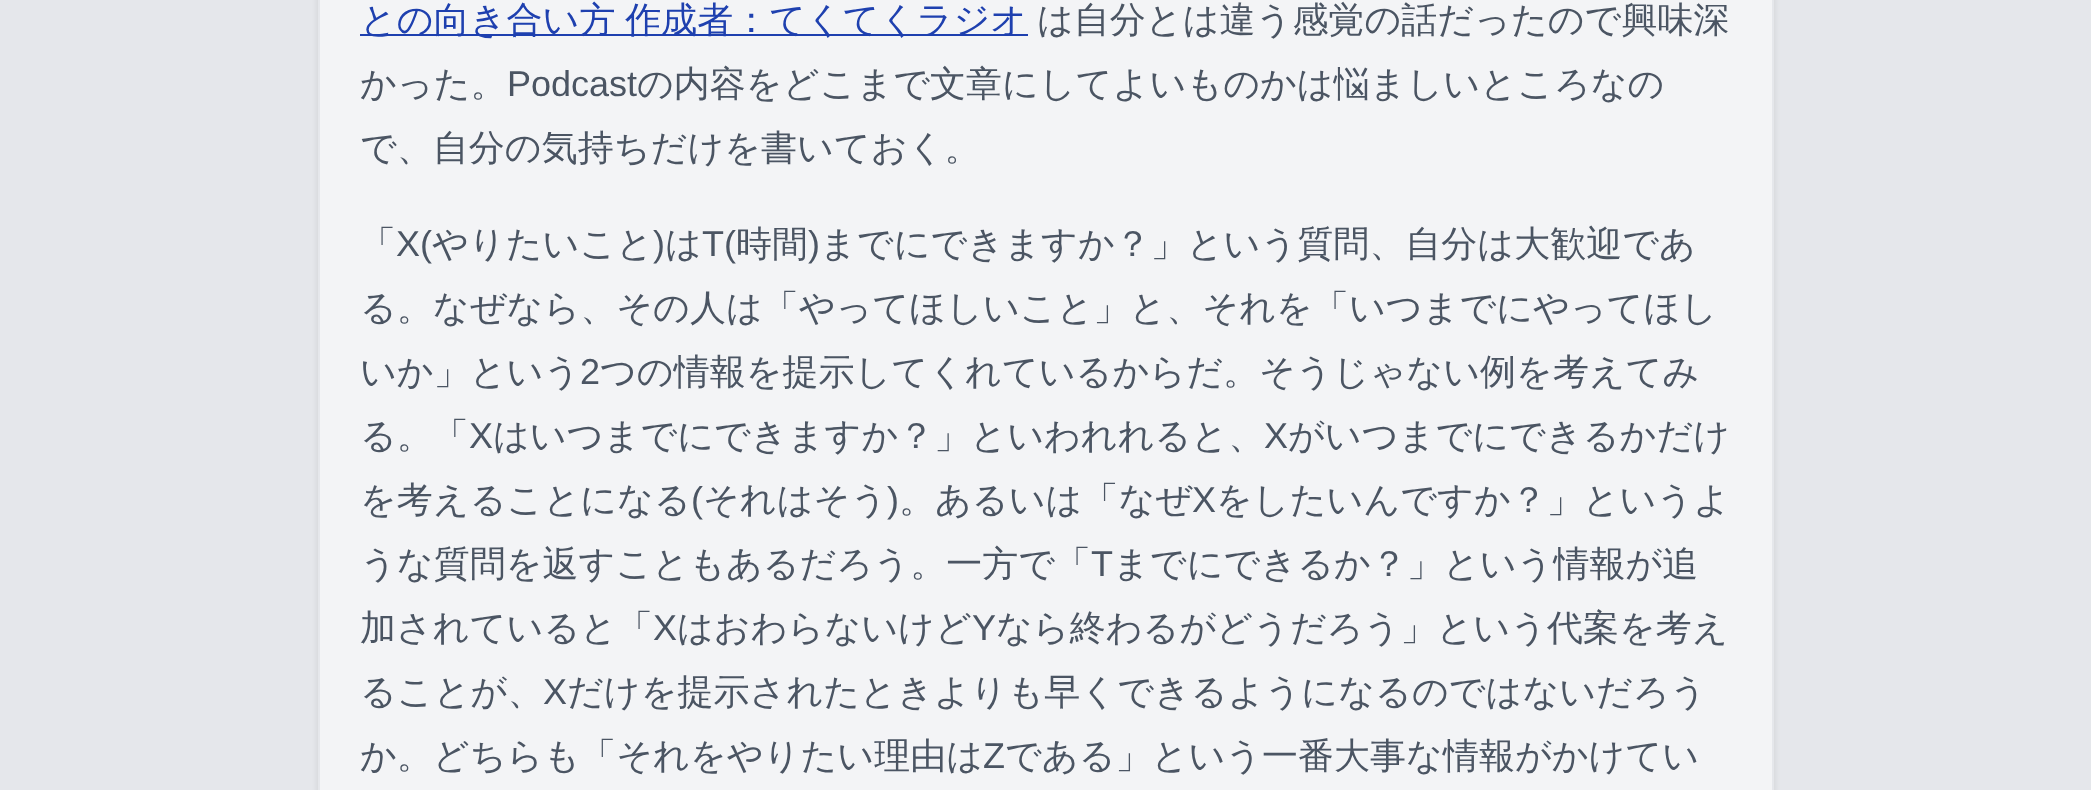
<!DOCTYPE html>
<meta charset="utf-8">
<style>body { margin: 0 } canvas { display: block }</style>
<canvas id="canvas" width="2091" height="790"></canvas>
<script>
window.onload = function () {
    const canvas = document.getElementById('canvas');
    const context = canvas.getContext('2d');
    context.miterLimit = 4;
    context.fontKerning = 'normal';

    context.fillStyle = 'rgb(229, 231, 235)';
    context.fillRect(0, 0, 2091, 790);
    context.fillStyle = 'rgba(0, 0, 0, 0.1)';
    context.filter = 'blur(3px)';
    context.beginPath();
    context.roundRect(318, -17, 1456, 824, 8);
    context.fill();
    context.filter = 'none';
    context.fillStyle = 'rgb(243, 244, 246)';
    context.beginPath();
    context.rect(319, -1, 1454, 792);
    context.fill();
    context.strokeStyle = 'rgb(229, 231, 235)';
    context.lineWidth = 2;
    context.stroke();
    context.fillStyle = 'rgb(30, 64, 175)';
    context.fillRect(360, 34, 668, 2);
    context.wordSpacing = '-1px';
    context.font = '500 36px WenQuanYi Zen Hei';
    context.fillText('との向き合い方 作成者：てくてくラジオ', 360, 32);
    context.wordSpacing = '0px';
    context.fillStyle = 'rgb(75, 85, 99)';
    context.fillText('は自分とは違う感覚の話だったので興味深', 1037, 32);
    context.fillText('かった。', 360, 96);
    context.font = '36px Liberation Sans';
    context.fillText('Podcast', 507, 96);
    context.font = '500 36px WenQuanYi Zen Hei';
    context.fillText('の内容をどこまで文章にしてよいものかは悩ましいところなの', 637, 96);
    context.fillText('で、自分の気持ちだけを書いておく。', 360, 160);
    context.fillText('「', 360, 256);
    context.font = '36px Liberation Sans';
    context.fillText('X(', 396, 256);
    context.font = '500 36px WenQuanYi Zen Hei';
    context.fillText('やりたいこと', 432, 256);
    context.font = '36px Liberation Sans';
    context.fillText(')', 653, 256);
    context.font = '500 36px WenQuanYi Zen Hei';
    context.fillText('は', 665, 256);
    context.font = '36px Liberation Sans';
    context.fillText('T(', 702, 256);
    context.font = '500 36px WenQuanYi Zen Hei';
    context.fillText('時間', 736, 256);
    context.font = '36px Liberation Sans';
    context.fillText(')', 808, 256);
    context.font = '500 36px WenQuanYi Zen Hei';
    context.fillText('までにできますか？」という質問、自分は大歓迎であ', 820, 256);
    context.fillText('る。なぜなら、その人は「やってほしいこと」と、それを「いつまでにやってほし', 360, 320);
    context.fillText('いか」という', 360, 384);
    context.font = '36px Liberation Sans';
    context.fillText('2', 580, 384);
    context.font = '500 36px WenQuanYi Zen Hei';
    context.fillText('つの情報を提示してくれているからだ。そうじゃない例を考えてみ', 600, 384);
    context.fillText('る。「', 360, 448);
    context.font = '36px Liberation Sans';
    context.fillText('X', 469, 448);
    context.font = '500 36px WenQuanYi Zen Hei';
    context.fillText('はいつまでにできますか？」といわれれると、', 493, 448);
    context.font = '36px Liberation Sans';
    context.fillText('X', 1264, 448);
    context.font = '500 36px WenQuanYi Zen Hei';
    context.fillText('がいつまでにできるかだけ', 1288, 448);
    context.fillText('を考えることになる', 360, 512);
    context.font = '36px Liberation Sans';
    context.fillText('(', 691, 512);
    context.font = '500 36px WenQuanYi Zen Hei';
    context.fillText('それはそう', 703, 512);
    context.font = '36px Liberation Sans';
    context.fillText(')', 887, 512);
    context.font = '500 36px WenQuanYi Zen Hei';
    context.fillText('。あるいは「なぜ', 899, 512);
    context.font = '36px Liberation Sans';
    context.fillText('X', 1192, 512);
    context.font = '500 36px WenQuanYi Zen Hei';
    context.fillText('をしたいんですか？」というよ', 1216, 512);
    context.fillText('うな質問を返すこともあるだろう。一方で「', 360, 576);
    context.font = '36px Liberation Sans';
    context.fillText('T', 1091, 576);
    context.font = '500 36px WenQuanYi Zen Hei';
    context.fillText('までにできるか？」という情報が追', 1113, 576);
    context.fillText('加されていると「', 360, 640);
    context.font = '36px Liberation Sans';
    context.fillText('X', 653, 640);
    context.font = '500 36px WenQuanYi Zen Hei';
    context.fillText('はおわらないけど', 677, 640);
    context.font = '36px Liberation Sans';
    context.fillText('Y', 972, 640);
    context.font = '500 36px WenQuanYi Zen Hei';
    context.fillText('なら終わるがどうだろう」という代案を考え', 996, 640);
    context.fillText('ることが、', 360, 704);
    context.font = '36px Liberation Sans';
    context.fillText('X', 543, 704);
    context.font = '500 36px WenQuanYi Zen Hei';
    context.fillText('だけを提示されたときよりも早くできるようになるのではないだろう', 567, 704);
    context.fillText('か。どちらも「それをやりたい理由は', 360, 768);
    context.font = '36px Liberation Sans';
    context.fillText('Z', 983, 768);
    context.font = '500 36px WenQuanYi Zen Hei';
    context.fillText('である」という一番大事な情報がかけてい', 1005, 768);
};
</script>
